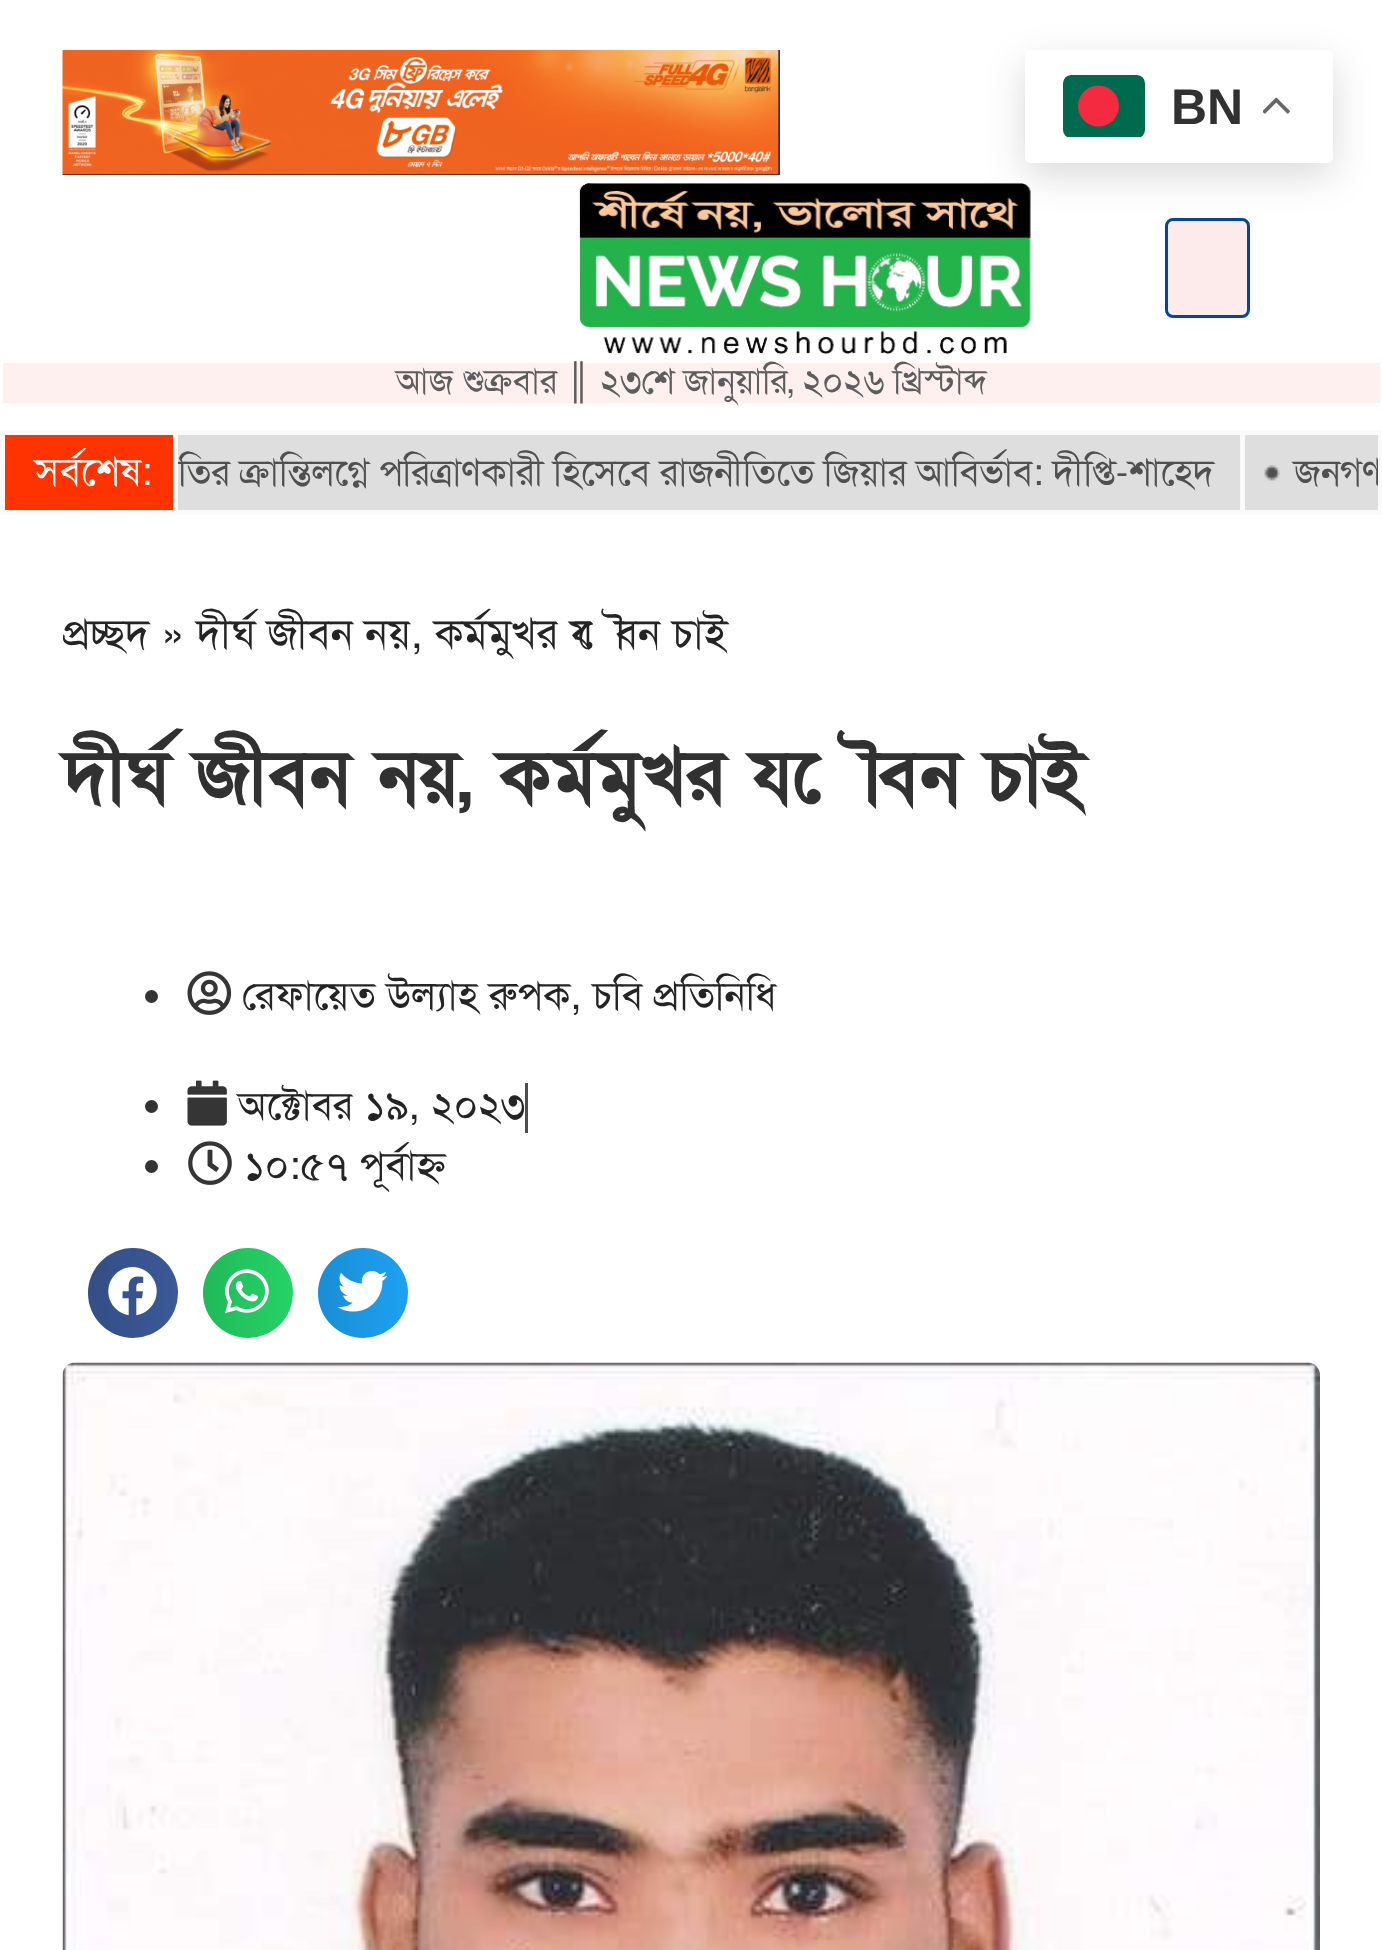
<!DOCTYPE html>
<meta charset="utf-8">
<style>body { margin: 0 } canvas { display: block }</style>
<canvas id="canvas" width="1382" height="1950"></canvas>
<img id="img1" src="images/3.png" hidden>
<img id="img2" src="images/1.png" hidden>
<img id="img3" src="images/2.png" hidden>
<img id="img4" src="images/4.png" hidden>
<img id="img5" src="images/5.png" hidden>
<img id="img6" src="images/6.png" hidden>
<img id="img7" src="images/7.png" hidden>
<img id="img8" src="images/8.png" hidden>
<img id="img9" src="images/9.png" hidden>
<img id="img10" src="images/10.png" hidden>
<img id="img11" src="images/11.png" hidden>
<script>
window.onload = function () {
    const canvas = document.getElementById('canvas');
    const context = canvas.getContext('2d');
    context.miterLimit = 4;
    context.fontKerning = 'normal';
    let gradient;

    context.fillStyle = 'rgb(255, 255, 255)';
    context.fillRect(0, 0, 1382, 1950);
    context.drawImage(document.getElementById('img1'), 579, 183, 452, 172);
    context.fillStyle = 'rgb(253, 234, 234)';
    context.beginPath();
    context.roundRect(1166.5, 219.5, 82, 97, 6.5);
    context.fill();
    context.strokeStyle = 'rgb(3, 70, 161)';
    context.lineWidth = 3;
    context.stroke();
    context.fillStyle = 'rgba(0, 0, 0, 0.15)';
    context.filter = 'blur(19px)';
    context.beginPath();
    context.roundRect(1025, 63, 308, 112, 5);
    context.fill();
    context.filter = 'none';
    context.fillStyle = 'rgb(255, 255, 255)';
    context.beginPath();
    context.roundRect(1025, 50, 308, 113, 5);
    context.fill();
    context.save();
    context.beginPath();
    context.roundRect(1063, 75, 82, 63, 8);
    context.clip();
    context.fillStyle = 'rgb(0, 106, 78)';
    context.beginPath();
    context.roundRect(1063, 75, 82, 62, [8, 8, 0, 0]);
    context.fill();
    context.restore();
    context.fillStyle = 'rgb(244, 42, 65)';
    context.beginPath();
    context.arc(1098.5, 106, 20.5, 0, 2 * Math.PI);
    context.fill();
    context.drawImage(document.getElementById('img2'), 1263, 97, 27, 17);
    context.drawImage(document.getElementById('img3'), 62, 50, 718, 125);
    context.fillStyle = 'rgb(255, 240, 240)';
    context.fillRect(3, 363, 1377, 40);
    context.fillStyle = 'rgb(250, 250, 250)';
    context.fillRect(0, 430, 1382, 85);
    context.fillStyle = 'rgb(255, 51, 0)';
    context.fillRect(5, 435, 168, 75);
    context.fillStyle = 'rgb(222, 222, 222)';
    context.fillRect(178, 435, 1062, 75);
    context.fillRect(1245, 435, 133, 75);
    context.drawImage(document.getElementById('img4'), 1264, 465, 16, 16);
    context.fillStyle = 'rgb(51, 51, 51)';
    context.beginPath();
    context.arc(151.5, 996.5, 6.5, 0, 2 * Math.PI);
    context.fill();
    context.drawImage(document.getElementById('img5'), 187, 971, 45, 44);
    context.beginPath();
    context.arc(151.5, 1106.5, 6.5, 0, 2 * Math.PI);
    context.fill();
    context.drawImage(document.getElementById('img6'), 187, 1080, 40, 46);
    context.fillStyle = 'rgb(78, 78, 78)';
    context.fillRect(525, 1083, 3, 50);
    context.fillStyle = 'rgb(51, 51, 51)';
    context.beginPath();
    context.arc(151.5, 1166.5, 6.5, 0, 2 * Math.PI);
    context.fill();
    context.drawImage(document.getElementById('img7'), 188, 1141, 44, 44);
    context.fillStyle = 'rgb(59, 89, 152)';
    context.beginPath();
    context.arc(133, 1293, 45, 0, 2 * Math.PI);
    context.fill();
    gradient = context.createLinearGradient(88, 1293, 178, 1293);
    gradient.addColorStop(0, 'rgba(0, 0, 0, 0.12)');
    gradient.addColorStop(1, 'rgba(0, 0, 0, 0)');
    context.fillStyle = gradient;
    context.beginPath();
    context.arc(133, 1293, 45, 0, 2 * Math.PI);
    context.fill();
    context.drawImage(document.getElementById('img8'), 108, 1267, 49, 49);
    context.fillStyle = 'rgb(37, 211, 102)';
    context.beginPath();
    context.arc(248, 1293, 45, 0, 2 * Math.PI);
    context.fill();
    gradient = context.createLinearGradient(203, 1293, 293, 1293);
    gradient.addColorStop(0, 'rgba(0, 0, 0, 0.12)');
    gradient.addColorStop(1, 'rgba(0, 0, 0, 0)');
    context.fillStyle = gradient;
    context.beginPath();
    context.arc(248, 1293, 45, 0, 2 * Math.PI);
    context.fill();
    context.drawImage(document.getElementById('img9'), 225, 1269, 44, 45);
    context.fillStyle = 'rgb(29, 161, 242)';
    context.beginPath();
    context.arc(363, 1293, 45, 0, 2 * Math.PI);
    context.fill();
    gradient = context.createLinearGradient(318, 1293, 408, 1293);
    gradient.addColorStop(0, 'rgba(0, 0, 0, 0.12)');
    gradient.addColorStop(1, 'rgba(0, 0, 0, 0)');
    context.fillStyle = gradient;
    context.beginPath();
    context.arc(363, 1293, 45, 0, 2 * Math.PI);
    context.fill();
    context.drawImage(document.getElementById('img10'), 337, 1270, 51, 42);
    context.drawImage(document.getElementById('img11'), 62, 1362, 1258, 588);
    context.font = 'bold 50px Liberation Sans';
    context.fillStyle = 'rgb(49, 49, 49)';
    context.fillText('BN', 1171, 124);
    context.font = '35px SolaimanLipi';
    context.fillStyle = 'rgb(93, 93, 93)';
    context.fillText('আজ শুক্রবার', 396, 393);
    context.font = '35px Liberation Sans';
    context.fillText('║', 566, 393);
    context.font = '35px SolaimanLipi';
    context.fillText('২৩শে জানুয়ারি, ২০২৬ খ্রিস্টাব্দ', 600, 393);
    context.font = '40px SolaimanLipi';
    context.fillStyle = 'rgb(250, 250, 250)';
    context.fillText('সর্বশেষ:', 35, 485);
    context.save();
    context.beginPath();
    context.rect(178, 435, 1200, 75);
    context.clip();
    context.font = '37.5px SolaimanLipi';
    context.fillStyle = 'rgb(80, 80, 80)';
    context.fillText('তির ক্রান্তিলগ্নে পরিত্রাণকারী হিসেবে রাজনীতিতে জিয়ার আবির্ভাব: দীপ্তি-শাহেদ', 178, 485);
    context.fillText('জনগণ', 1294, 485);
    context.restore();
    context.font = '42.5px "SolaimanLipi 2"';
    context.fillStyle = 'rgb(36, 36, 36)';
    context.fillText('প্রচ্ছদ » দীর্ঘ জীবন নয়, কর্মমুখর যৌবন চাই', 63, 648);
    context.font = 'bold 75px SolaimanLipi';
    context.fillStyle = 'rgb(49, 49, 49)';
    context.fillText('দীর্ঘ জীবন নয়, কর্মমুখর যৌবন চাই', 63, 801);
    context.font = '40px "SolaimanLipi 2"';
    context.fillStyle = 'rgb(36, 36, 36)';
    context.fillText('রেফায়েত উল্যাহ রুপক, চবি প্রতিনিধি', 242, 1009);
    context.fillText('অক্টোবর ১৯, ২০২৩', 238, 1119);
    context.fillText('১০:৫৭ পূর্বাহ্ণ', 244, 1179);
};
</script>
